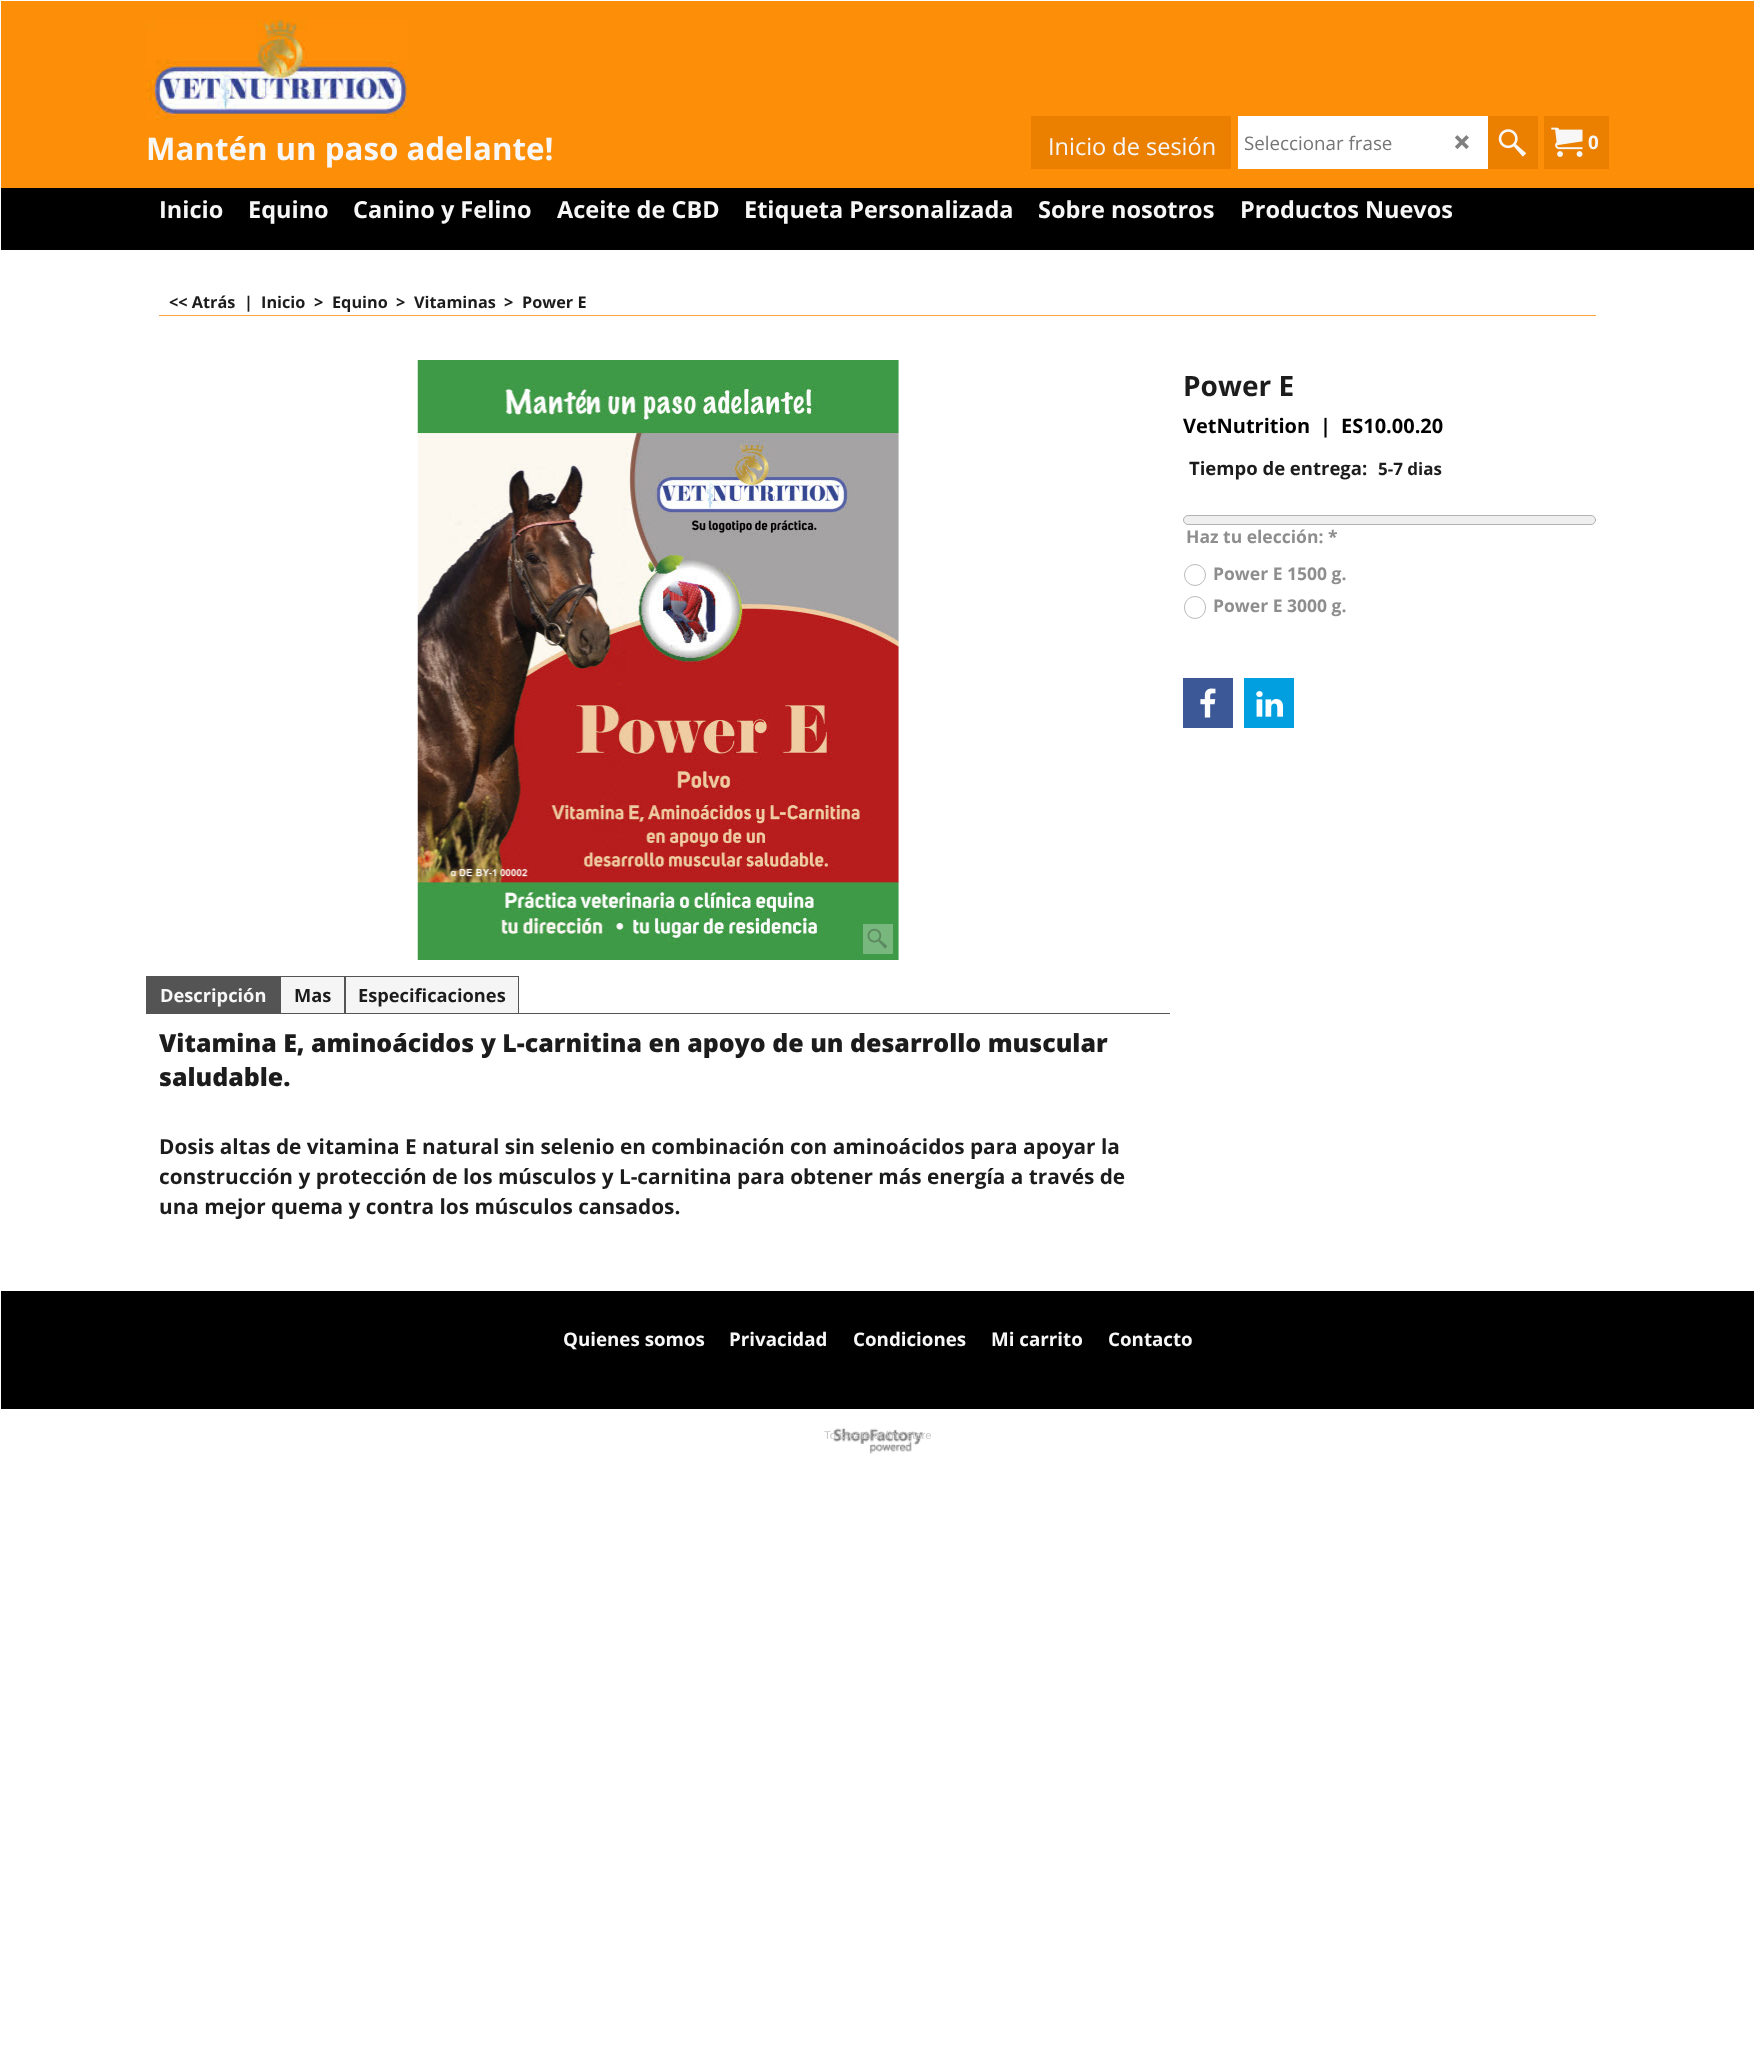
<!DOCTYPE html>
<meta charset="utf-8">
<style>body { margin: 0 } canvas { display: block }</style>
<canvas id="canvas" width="1754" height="2066"></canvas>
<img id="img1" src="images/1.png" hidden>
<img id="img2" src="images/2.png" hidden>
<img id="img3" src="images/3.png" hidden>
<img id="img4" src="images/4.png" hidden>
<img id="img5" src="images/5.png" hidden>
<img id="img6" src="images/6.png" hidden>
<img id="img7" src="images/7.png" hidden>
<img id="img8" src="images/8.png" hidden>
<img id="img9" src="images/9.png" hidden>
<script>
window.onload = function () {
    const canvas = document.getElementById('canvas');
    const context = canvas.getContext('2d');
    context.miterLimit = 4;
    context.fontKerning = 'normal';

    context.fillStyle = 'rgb(255, 255, 255)';
    context.fillRect(0, 0, 1754, 2066);
    context.fillStyle = 'rgb(0, 0, 0)';
    context.fillRect(1, 188, 1753, 62);
    context.fillStyle = 'rgb(253, 143, 8)';
    context.fillRect(1, 1, 1753, 187);
    context.drawImage(document.getElementById('img1'), 146, 20, 261, 100);
    context.fillStyle = 'rgb(234, 127, 0)';
    context.fillRect(1031, 116, 200, 53);
    context.fillStyle = 'rgb(255, 255, 255)';
    context.fillRect(1238, 116, 250, 53);
    context.drawImage(document.getElementById('img2'), 1455, 135, 14, 14);
    context.fillStyle = 'rgb(234, 127, 0)';
    context.fillRect(1488, 116, 50, 53);
    context.drawImage(document.getElementById('img3'), 1498, 129, 29, 28);
    context.fillRect(1544, 116, 65, 53);
    context.drawImage(document.getElementById('img4'), 1551, 127, 32, 30);
    context.fillStyle = 'rgb(255, 164, 57)';
    context.fillRect(159, 315, 1437, 1);
    context.drawImage(document.getElementById('img5'), 417, 360, 482, 600);
    context.fillStyle = 'rgb(120, 184, 126)';
    context.fillRect(863, 924, 30, 30);
    context.drawImage(document.getElementById('img6'), 867, 928, 21, 21);
    context.fillStyle = 'rgb(239, 239, 239)';
    context.beginPath();
    context.roundRect(1183.5, 515.5, 412, 9, 4.5);
    context.fill();
    context.strokeStyle = 'rgb(178, 178, 178)';
    context.stroke();
    context.beginPath();
    context.arc(1195, 575, 10.5, 0, 2 * Math.PI);
    context.strokeStyle = 'rgb(187, 187, 187)';
    context.stroke();
    context.beginPath();
    context.roundRect(1184.5, 596.5, 21, 22, 10.5);
    context.stroke();
    context.fillStyle = 'rgb(60, 88, 151)';
    context.fillRect(1183, 678, 50, 50);
    context.drawImage(document.getElementById('img7'), 1200, 688, 16, 30);
    context.fillStyle = 'rgb(1, 159, 224)';
    context.fillRect(1244, 678, 50, 50);
    context.drawImage(document.getElementById('img8'), 1256, 691, 27, 26);
    context.fillStyle = 'rgb(84, 84, 84)';
    context.fillRect(146, 976, 134, 38);
    context.fillStyle = 'rgb(245, 245, 245)';
    context.fillRect(281, 977, 63, 36);
    context.fillStyle = 'rgb(84, 84, 84)';
    context.fillRect(280, 976, 239, 1);
    context.fillRect(344, 976, 2, 37);
    context.fillRect(280, 976, 1, 37);
    context.fillStyle = 'rgb(245, 245, 245)';
    context.fillRect(346, 977, 172, 36);
    context.fillStyle = 'rgb(84, 84, 84)';
    context.fillRect(518, 976, 1, 37);
    context.fillRect(280, 1013, 890, 1);
    context.fillStyle = 'rgb(0, 0, 0)';
    context.fillRect(1, 1291, 1753, 118);
    context.drawImage(document.getElementById('img9'), 833, 1428, 90, 26);
    context.font = 'bold 31.25px Open Sans';
    context.fillStyle = 'rgb(247, 247, 247)';
    context.fillText('Mantén un paso adelante!', 146, 160);
    context.font = '23.5px Open Sans';
    context.fillText('Inicio de sesión', 1048, 155);
    context.font = '18.75px Open Sans';
    context.fillStyle = 'rgb(117, 117, 117)';
    context.fillText('Seleccionar frase', 1244, 150);
    context.font = 'bold 18.75px Open Sans';
    context.fillStyle = 'rgb(247, 247, 247)';
    context.fillText('0', 1588, 149);
    context.font = 'bold 23.5px Open Sans';
    context.fillText('Inicio', 159, 218);
    context.fillText('Equino', 248, 218);
    context.fillText('Canino y Felino', 353, 218);
    context.fillText('Aceite de CBD', 557, 218);
    context.fillText('Etiqueta Personalizada', 744, 218);
    context.fillText('Sobre nosotros', 1038, 218);
    context.fillText('Productos Nuevos', 1240, 218);
    context.font = 'bold 16.25px Open Sans';
    context.fillStyle = 'rgb(28, 28, 28)';
    context.fillText('<< Atrás', 169, 308);
    context.fillText('|', 244, 308);
    context.fillText('Inicio', 261, 308);
    context.fillText('>', 314, 308);
    context.fillText('Equino', 332, 308);
    context.fillText('>', 396, 308);
    context.fillText('Vitaminas', 414, 308);
    context.fillText('>', 504, 308);
    context.fillText('Power E', 522, 308);
    context.font = 'bold 28px Open Sans';
    context.fillText('Power E', 1183, 396);
    context.font = 'bold 20px Open Sans';
    context.fillStyle = 'rgb(0, 0, 0)';
    context.fillText('VetNutrition', 1183, 433);
    context.fillText('|', 1320, 433);
    context.fillText('ES10.00.20', 1341, 433);
    context.font = 'bold 18.5px Open Sans';
    context.fillStyle = 'rgb(28, 28, 28)';
    context.fillText('Tiempo de entrega:', 1189, 475);
    context.font = 'bold 17px Open Sans';
    context.fillText('5-7 dias', 1378, 475);
    context.font = 'bold 17.5px Open Sans';
    context.fillStyle = 'rgb(142, 142, 142)';
    context.fillText('Haz tu elección: *', 1186, 543);
    context.fillText('Power E 1500 g.', 1213, 580);
    context.fillText('Power E 3000 g.', 1213, 612);
    context.font = 'bold 18.25px Open Sans';
    context.fillStyle = 'rgb(247, 247, 247)';
    context.fillText('Descripción', 160, 1002);
    context.fillStyle = 'rgb(28, 28, 28)';
    context.fillText('Mas', 294, 1002);
    context.fillText('Especificaciones', 358, 1002);
    context.font = '800 24.95px Open Sans';
    context.fillText('Vitamina E, aminoácidos y L-carnitina en apoyo de un desarrollo muscular', 159, 1052);
    context.fillText('saludable.', 159, 1086);
    context.font = 'bold 20.8px Open Sans';
    context.fillText('Dosis altas de vitamina E natural sin selenio en combinación con aminoácidos para apoyar la', 159, 1154);
    context.fillText('construcción y protección de los músculos y L-carnitina para obtener más energía a través de', 159, 1184);
    context.fillText('una mejor quema y contra los músculos cansados.', 159, 1214);
    context.font = 'bold 18.75px Open Sans';
    context.fillStyle = 'rgb(247, 247, 247)';
    context.fillText('Quienes somos', 563, 1346);
    context.fillText('Privacidad', 729, 1346);
    context.fillText('Condiciones', 853, 1346);
    context.fillText('Mi carrito', 991, 1346);
    context.fillText('Contacto', 1108, 1346);
    context.font = '11.25px Liberation Sans';
    context.fillStyle = 'rgb(199, 199, 199)';
    context.fillText('To create online store', 824, 1439);
};
</script>
